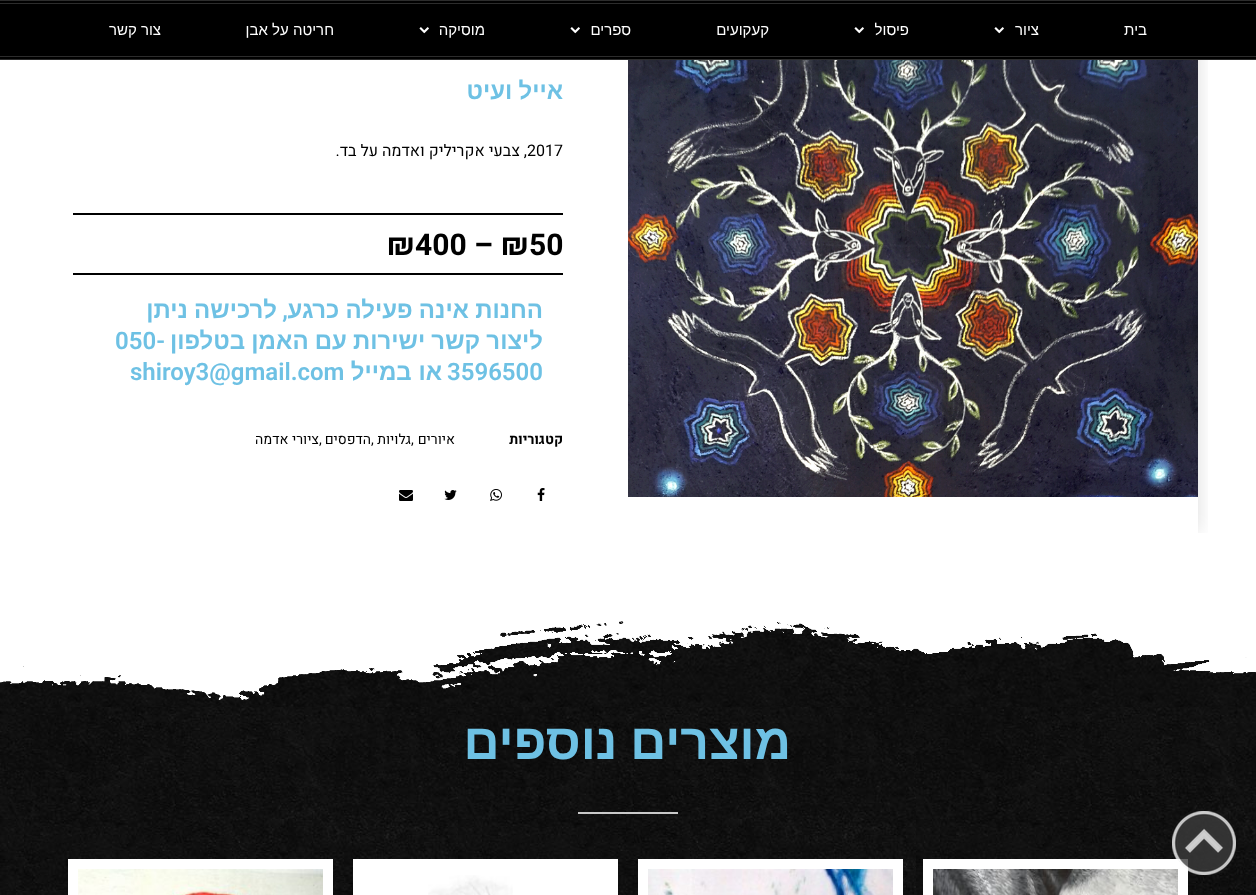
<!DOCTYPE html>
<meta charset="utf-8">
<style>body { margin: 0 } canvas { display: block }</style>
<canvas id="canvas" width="1256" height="895"></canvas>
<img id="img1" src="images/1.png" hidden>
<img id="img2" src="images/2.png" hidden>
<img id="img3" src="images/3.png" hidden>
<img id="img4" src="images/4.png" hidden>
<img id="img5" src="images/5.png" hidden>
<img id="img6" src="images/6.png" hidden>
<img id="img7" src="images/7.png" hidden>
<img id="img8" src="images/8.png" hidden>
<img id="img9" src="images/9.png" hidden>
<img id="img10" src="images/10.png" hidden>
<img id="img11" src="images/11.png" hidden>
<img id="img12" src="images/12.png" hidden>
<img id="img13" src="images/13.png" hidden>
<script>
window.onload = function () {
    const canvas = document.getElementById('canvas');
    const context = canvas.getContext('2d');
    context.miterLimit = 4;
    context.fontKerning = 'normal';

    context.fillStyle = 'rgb(255, 255, 255)';
    context.fillRect(0, 0, 1256, 895);
    context.save();
    context.beginPath();
    context.rect(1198, 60, 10, 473);
    context.clip();
    context.fillStyle = 'rgba(0, 0, 0, 0.15)';
    context.filter = 'blur(10px)';
    context.beginPath();
    context.rect(649, 13, 548, 519);
    context.fill();
    context.filter = 'none';
    context.restore();
    context.fillStyle = 'rgb(0, 0, 0)';
    context.fillRect(0, 1, 1256, 58);
    context.fillStyle = 'rgb(44, 44, 44)';
    context.fillRect(0, 0, 1256, 1);
    context.fillRect(0, 3, 1256, 1);
    context.fillRect(0, 56, 1256, 1);
    context.fillRect(0, 59, 1256, 1);
    context.drawImage(document.getElementById('img1'), 994, 27, 10, 7);
    context.drawImage(document.getElementById('img1'), 854, 27, 10, 7);
    context.drawImage(document.getElementById('img1'), 570, 27, 10, 7);
    context.drawImage(document.getElementById('img1'), 419, 27, 10, 7);
    context.drawImage(document.getElementById('img2'), 628, 60, 570, 437);
    context.fillStyle = 'rgb(0, 0, 0)';
    context.fillRect(73, 213, 490, 2);
    context.fillRect(73, 273, 490, 2);
    context.drawImage(document.getElementById('img3'), 537, 488, 8, 13);
    context.drawImage(document.getElementById('img4'), 490, 489, 12, 12);
    context.drawImage(document.getElementById('img5'), 444, 490, 13, 10);
    context.drawImage(document.getElementById('img6'), 399, 490, 14, 11);
    context.fillStyle = 'rgb(255, 255, 255)';
    context.fillRect(639, 533, 568, 14);
    context.drawImage(document.getElementById('img7'), 0, 621, 1256, 86);
    context.drawImage(document.getElementById('img8'), 0, 707, 1256, 188);
    context.fillStyle = 'rgb(201, 201, 201)';
    context.fillRect(578, 812, 100, 2);
    context.fillStyle = 'rgb(255, 255, 255)';
    context.fillRect(923, 859, 265, 36);
    context.drawImage(document.getElementById('img9'), 933, 869, 245, 26);
    context.fillRect(638, 859, 265, 36);
    context.drawImage(document.getElementById('img10'), 648, 869, 245, 26);
    context.fillRect(353, 859, 265, 36);
    context.drawImage(document.getElementById('img11'), 428, 875, 85, 20);
    context.fillRect(68, 859, 265, 36);
    context.drawImage(document.getElementById('img12'), 78, 869, 245, 26);
    context.drawImage(document.getElementById('img13'), 1172, 811, 64, 64);
    context.direction = 'rtl';
    context.font = '15px Liberation Sans';
    context.fillText('בית', 1147, 35);
    context.fillText('ציור', 1039, 35);
    context.fillText('פיסול', 909, 35);
    context.fillText('קעקועים', 769, 35);
    context.fillText('ספרים', 631, 35);
    context.fillText('מוסיקה', 485, 35);
    context.fillText('חריטה על אבן', 334, 35);
    context.fillText('צור קשר', 161, 35);
    context.wordSpacing = '-0.5px';
    context.font = 'bold 24px Liberation Sans';
    context.fillStyle = 'rgb(110, 193, 228)';
    context.fillText('אייל ועיט', 563, 99);
    context.wordSpacing = '0px';
    context.direction = 'ltr';
    context.font = '16px Heebo';
    context.fillStyle = 'rgb(0, 0, 0)';
    context.fillText('2017', 527, 156);
    context.direction = 'rtl';
    context.fillText(', צבעי אקריליק ואדמה על בד.', 527, 156);
    context.direction = 'ltr';
    context.font = 'bold 30px Heebo';
    context.fillText('₪50', 501, 255);
    context.fillText('–', 474, 255);
    context.fillText('₪400', 387, 255);
    context.wordSpacing = '-0.5px';
    context.direction = 'rtl';
    context.font = 'bold 24px Liberation Sans';
    context.fillStyle = 'rgb(110, 193, 228)';
    context.fillText('החנות אינה פעילה כרגע', 543, 318);
    context.wordSpacing = '0px';
    context.font = '600 24px Roboto';
    context.fillText(',', 288, 318);
    context.wordSpacing = '-0.5px';
    context.font = 'bold 24px Liberation Sans';
    context.fillText('לרכישה ניתן', 277, 318);
    context.fillText('ליצור קשר ישירות עם האמן בטלפון', 543, 349);
    context.wordSpacing = '0px';
    context.direction = 'ltr';
    context.font = '600 24px Roboto';
    context.fillText('050-', 115, 349);
    context.fillText('3596500', 447, 380);
    context.direction = 'rtl';
    context.font = 'bold 24px Liberation Sans';
    context.fillText('או במייל', 442, 380);
    context.direction = 'ltr';
    context.font = '600 24px Roboto';
    context.fillText('shiroy3@gmail.com', 130, 380);
    context.direction = 'rtl';
    context.font = 'bold 14px Heebo';
    context.fillStyle = 'rgb(0, 0, 0)';
    context.fillText('קטגוריות', 563, 444);
    context.font = '14px Heebo';
    context.fillText('איורים', 455, 444);
    context.direction = 'ltr';
    context.fillText(',', 411, 444);
    context.direction = 'rtl';
    context.fillText('גלויות', 411, 444);
    context.direction = 'ltr';
    context.fillText(',', 371, 444);
    context.direction = 'rtl';
    context.fillText('הדפסים', 371, 444);
    context.direction = 'ltr';
    context.fillText(',', 319, 444);
    context.direction = 'rtl';
    context.fillText('ציורי אדמה', 319, 444);
    context.wordSpacing = '-1px';
    context.font = 'bold 50px Liberation Sans';
    context.fillStyle = 'rgb(110, 193, 228)';
    context.fillText('מוצרים נוספים', 791, 759);
};
</script>
